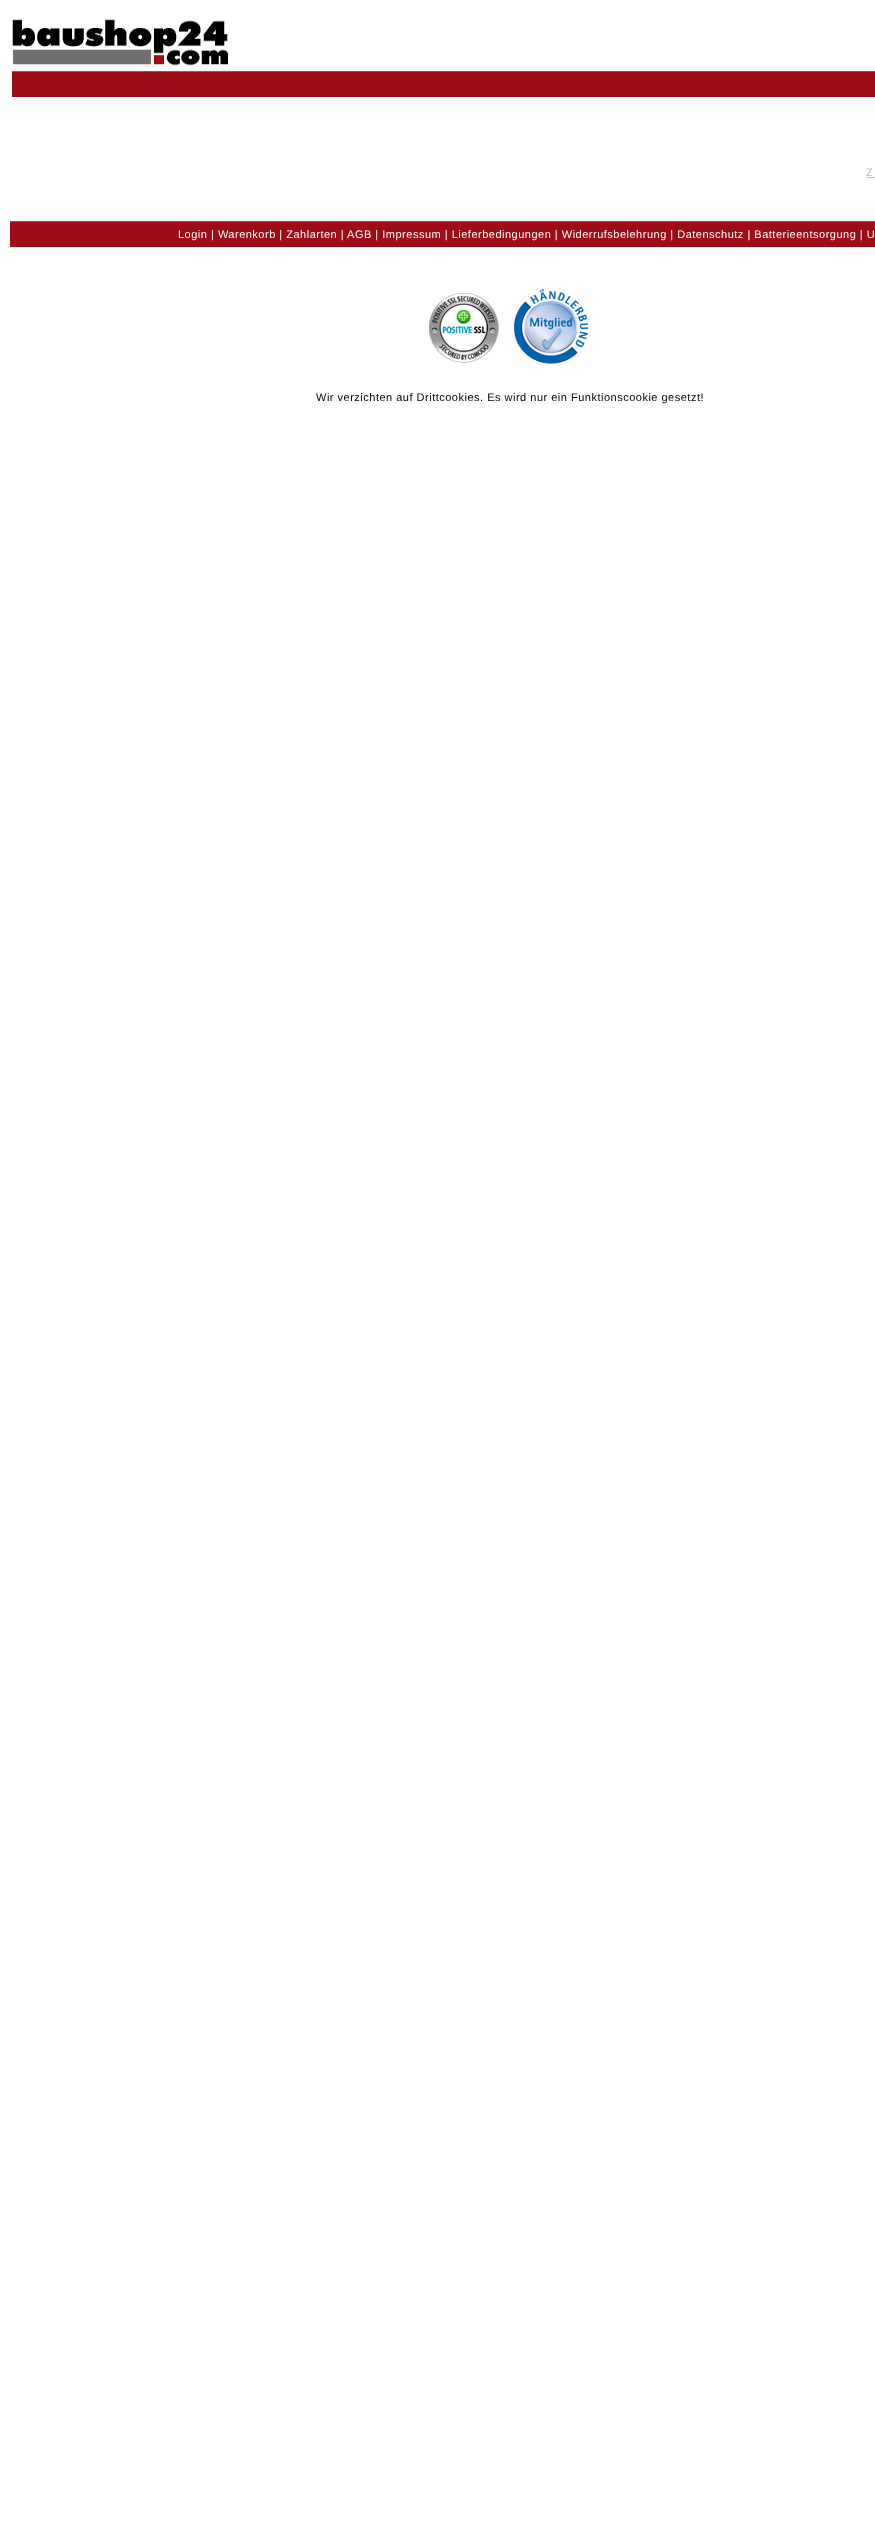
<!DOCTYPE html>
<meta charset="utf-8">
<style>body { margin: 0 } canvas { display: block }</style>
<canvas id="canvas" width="875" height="2531"></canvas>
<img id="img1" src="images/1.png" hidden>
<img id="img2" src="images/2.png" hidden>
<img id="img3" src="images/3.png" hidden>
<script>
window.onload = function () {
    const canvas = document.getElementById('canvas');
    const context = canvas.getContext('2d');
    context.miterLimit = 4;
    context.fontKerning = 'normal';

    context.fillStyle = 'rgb(255, 255, 255)';
    context.fillRect(0, 0, 875, 2531);
    context.drawImage(document.getElementById('img1'), 12, 19, 216, 47);
    context.fillStyle = 'rgb(157, 13, 21)';
    context.fillRect(12, 72, 863, 25);
    context.fillStyle = 'rgb(105, 105, 105)';
    context.fillRect(12, 71, 863, 1);
    context.fillStyle = 'rgb(180, 194, 208)';
    context.fillRect(866, 177, 9, 1);
    context.fillStyle = 'rgb(157, 13, 21)';
    context.fillRect(10, 222, 865, 25);
    context.fillStyle = 'rgb(105, 105, 105)';
    context.fillRect(10, 221, 865, 1);
    context.drawImage(document.getElementById('img2'), 429, 293, 70, 70);
    context.drawImage(document.getElementById('img3'), 512, 288, 79, 78);
    context.letterSpacing = '0.5px';
    context.font = '11px Liberation Sans';
    context.fillStyle = 'rgb(180, 194, 208)';
    context.fillText('Z', 866, 176);
    context.fillStyle = 'rgb(255, 255, 255)';
    context.fillText('Login | Warenkorb | Zahlarten | AGB | Impressum | Lieferbedingungen | Widerrufsbelehrung | Datenschutz | Batterieentsorgung | U', 178, 238);
    context.fillStyle = 'rgb(0, 0, 0)';
    context.fillText('Wir verzichten auf Drittcookies. Es wird nur ein Funktionscookie gesetzt!', 316, 401);
};
</script>
